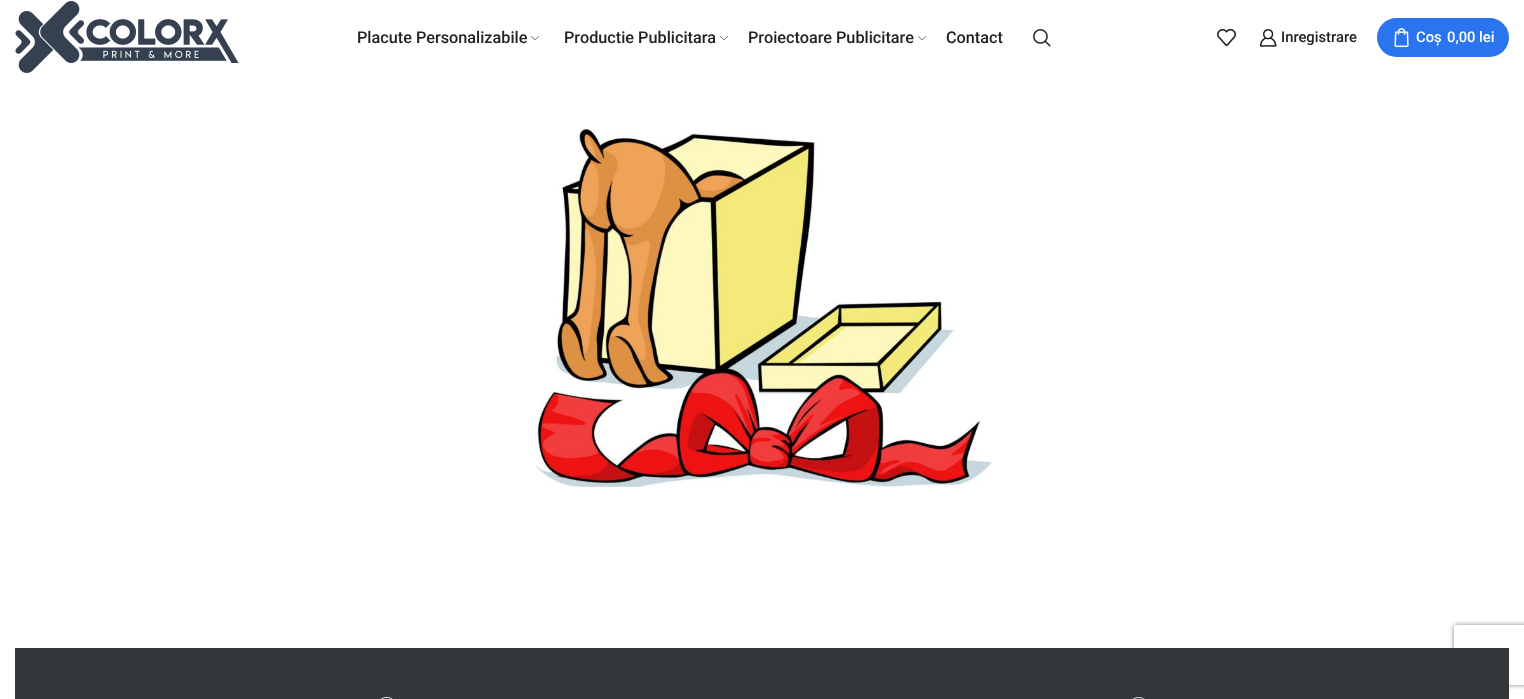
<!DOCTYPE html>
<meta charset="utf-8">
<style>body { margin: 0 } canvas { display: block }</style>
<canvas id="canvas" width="1524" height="699"></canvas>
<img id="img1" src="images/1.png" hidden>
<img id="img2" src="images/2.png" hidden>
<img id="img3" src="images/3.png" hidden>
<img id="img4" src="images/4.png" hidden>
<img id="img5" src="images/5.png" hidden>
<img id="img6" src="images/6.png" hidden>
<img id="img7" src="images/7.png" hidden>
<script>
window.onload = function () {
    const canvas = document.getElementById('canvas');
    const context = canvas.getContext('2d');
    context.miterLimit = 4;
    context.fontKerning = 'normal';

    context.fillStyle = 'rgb(255, 255, 255)';
    context.fillRect(0, 0, 1524, 699);
    context.drawImage(document.getElementById('img1'), 15, 1, 224, 72);
    context.drawImage(document.getElementById('img2'), 531, 36, 8, 4);
    context.drawImage(document.getElementById('img2'), 720, 36, 8, 4);
    context.drawImage(document.getElementById('img2'), 918, 36, 8, 4);
    context.drawImage(document.getElementById('img3'), 1033, 29, 18, 18);
    context.drawImage(document.getElementById('img4'), 1217, 29, 20, 18);
    context.drawImage(document.getElementById('img5'), 1259, 29, 18, 18);
    context.fillStyle = 'rgb(42, 116, 237)';
    context.beginPath();
    context.roundRect(1377, 18, 132, 39, 19.5);
    context.fill();
    context.drawImage(document.getElementById('img6'), 1394, 28, 15, 20);
    context.drawImage(document.getElementById('img7'), 536, 129, 456, 358);
    context.save();
    context.beginPath();
    context.moveTo(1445, 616);
    context.lineTo(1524, 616);
    context.lineTo(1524, 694);
    context.lineTo(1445, 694);
    context.closePath();
    context.moveTo(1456, 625);
    context.lineTo(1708, 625);
    context.bezierCurveTo(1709, 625, 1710, 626, 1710, 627);
    context.lineTo(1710, 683);
    context.bezierCurveTo(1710, 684, 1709, 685, 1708, 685);
    context.lineTo(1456, 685);
    context.bezierCurveTo(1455, 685, 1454, 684, 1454, 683);
    context.lineTo(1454, 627);
    context.bezierCurveTo(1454, 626, 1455, 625, 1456, 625);
    context.closePath();
    context.clip('evenodd');
    context.fillStyle = 'rgb(128, 128, 128)';
    context.filter = 'blur(2.5px)';
    context.beginPath();
    context.roundRect(1454, 625, 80, 60, 2);
    context.fill();
    context.filter = 'none';
    context.restore();
    context.fillStyle = 'rgb(50, 55, 60)';
    context.fillRect(15, 648, 1494, 51);
    context.beginPath();
    context.moveTo(379.5, 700.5);
    context.bezierCurveTo(382, 698, 385, 697, 388.5, 697.5);
    context.bezierCurveTo(400, 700, 398.5, 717.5, 386.5, 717.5);
    context.bezierCurveTo(384, 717.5, 381.5, 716.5, 379.5, 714.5);
    context.strokeStyle = 'rgb(225, 225, 225)';
    context.stroke();
    context.beginPath();
    context.moveTo(1131.5, 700.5);
    context.bezierCurveTo(1133.5, 698.5, 1136, 697.5, 1138.5, 697.5);
    context.bezierCurveTo(1150.5, 697.5, 1152, 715, 1140.5, 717.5);
    context.bezierCurveTo(1137, 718, 1134, 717, 1131.5, 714.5);
    context.stroke();
    context.font = '500 16.25px Roboto';
    context.fillStyle = 'rgb(34, 34, 34)';
    context.fillText('Placute Personalizabile', 357, 43);
    context.fillText('Productie Publicitara', 564, 43);
    context.fillText('Proiectoare Publicitare', 748, 43);
    context.fillText('Contact', 946, 43);
    context.font = '500 14.75px Roboto';
    context.fillText('Inregistrare', 1281, 42);
    context.fillStyle = 'rgb(255, 255, 255)';
    context.fillText('Coș', 1416, 42);
    context.fillText('0,00 lei', 1447, 42);
};
</script>
